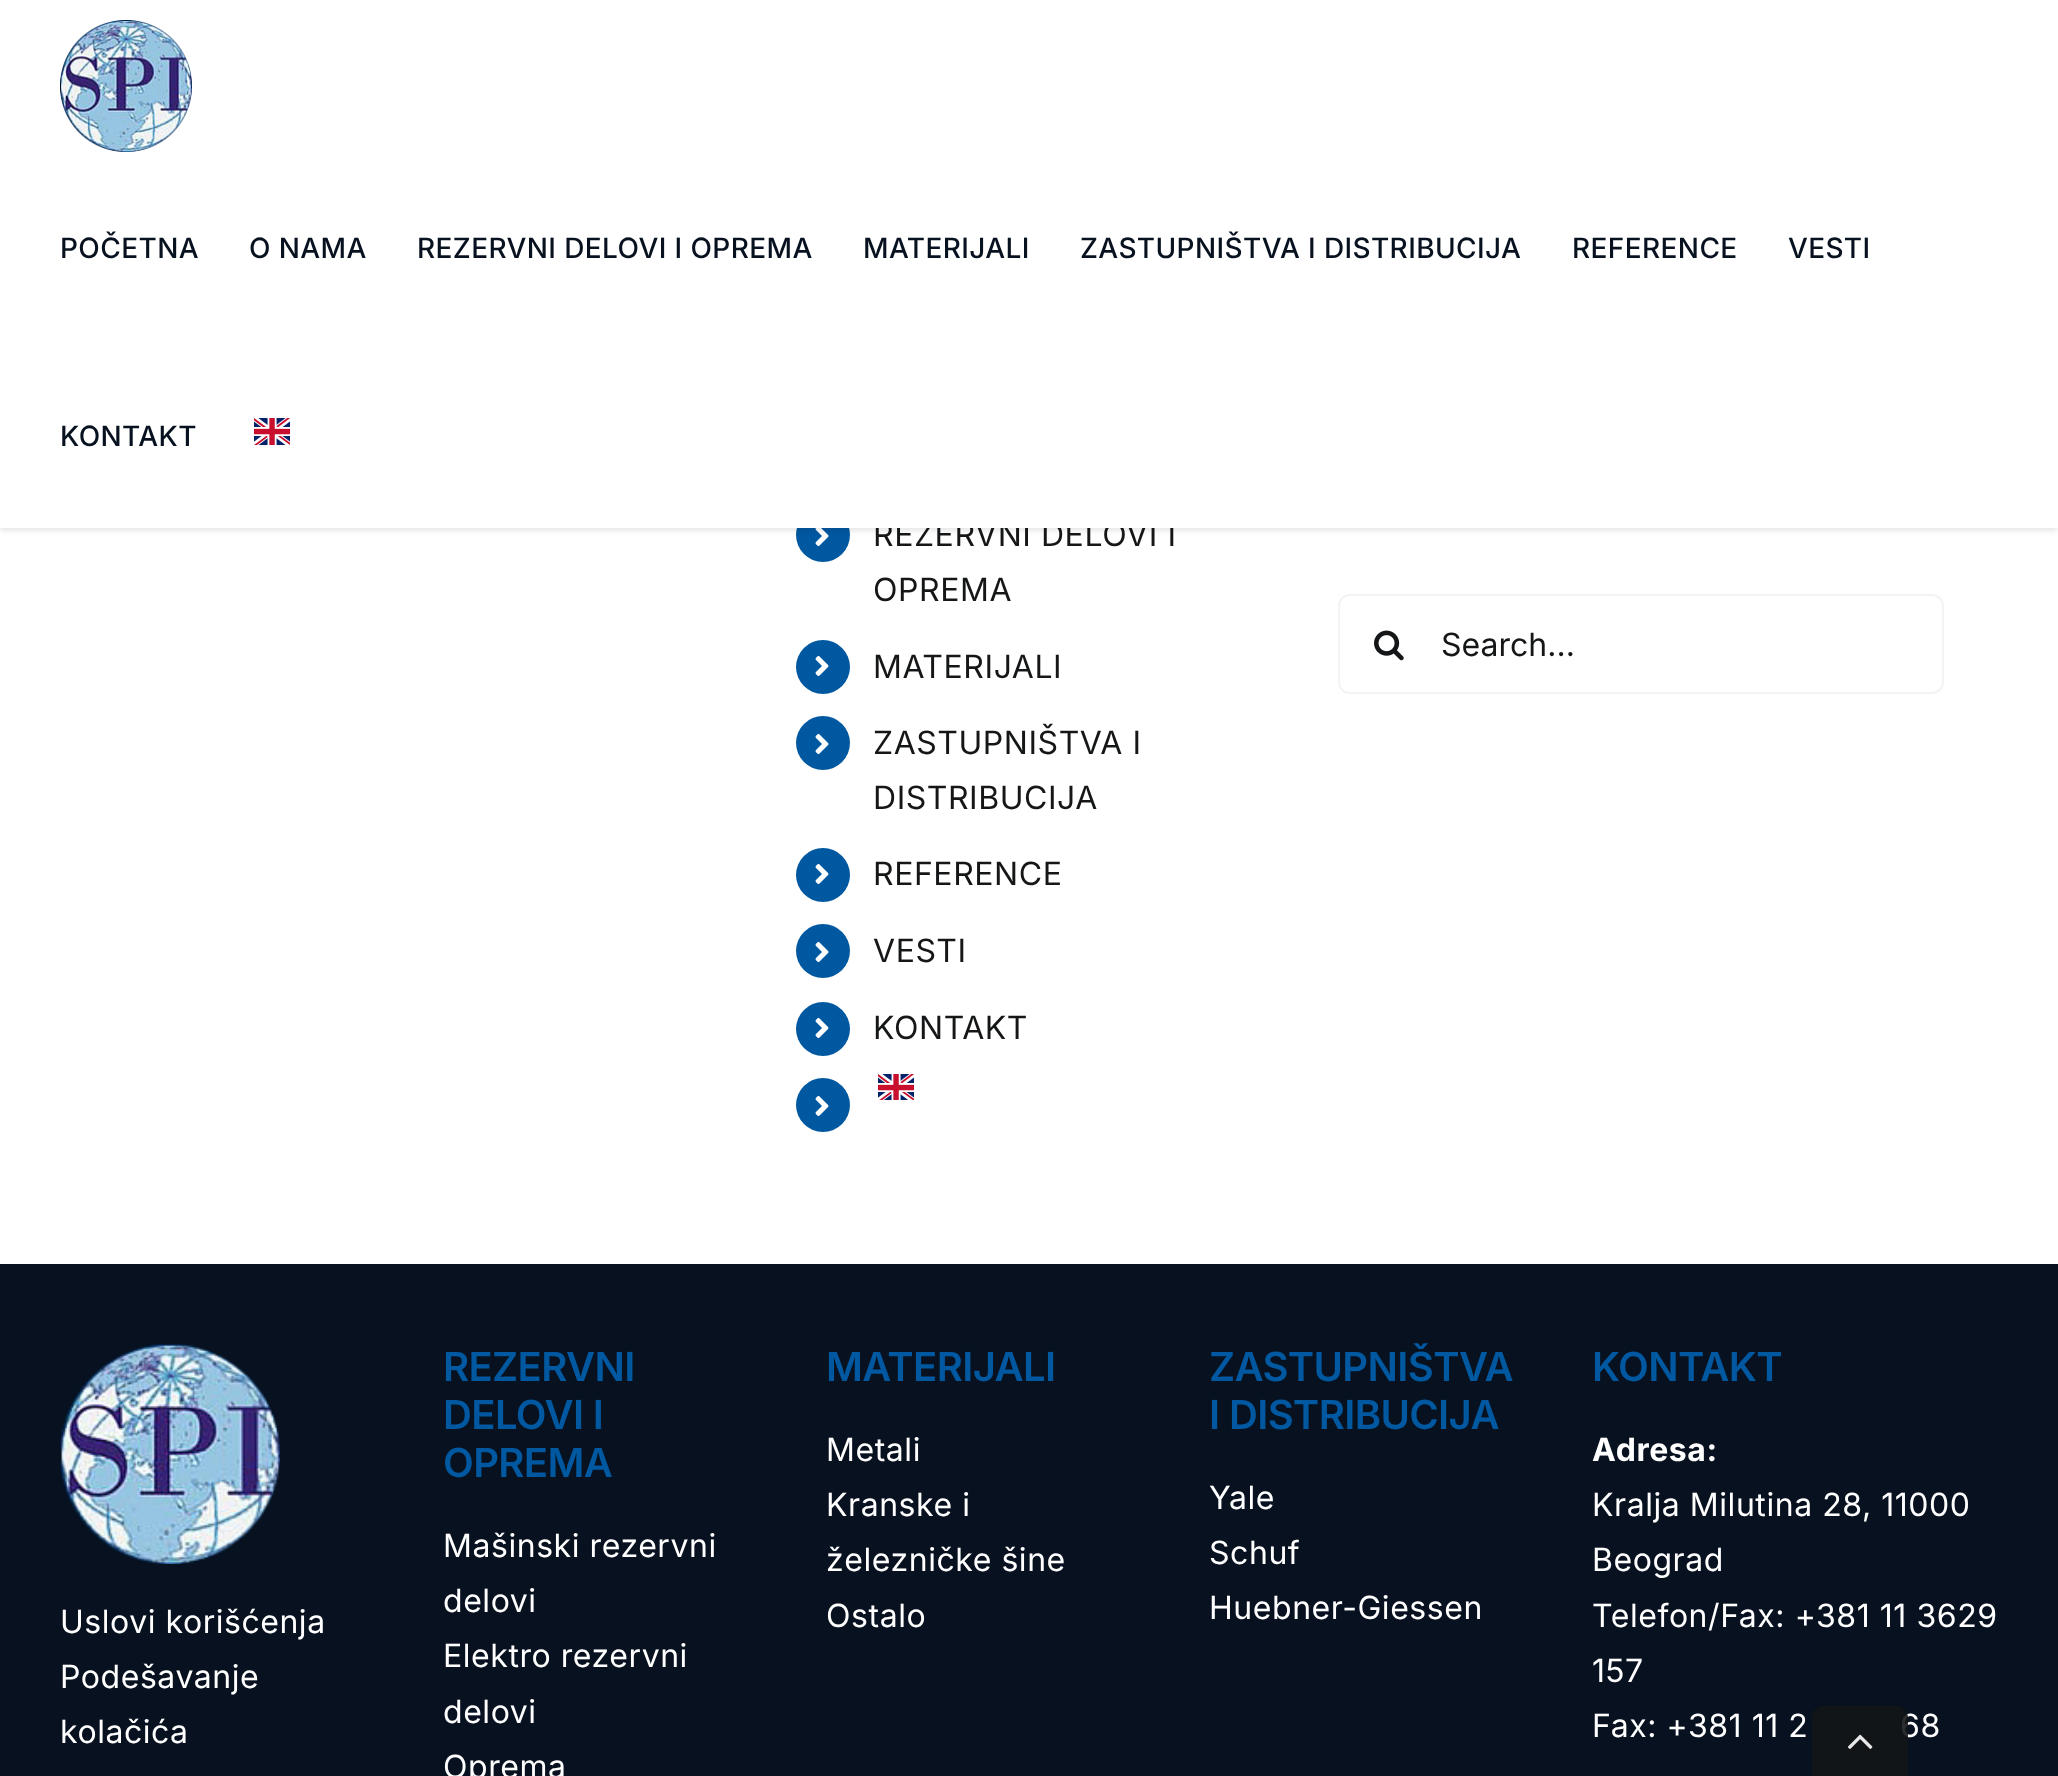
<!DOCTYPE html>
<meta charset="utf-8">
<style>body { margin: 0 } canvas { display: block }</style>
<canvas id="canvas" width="2058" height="1776"></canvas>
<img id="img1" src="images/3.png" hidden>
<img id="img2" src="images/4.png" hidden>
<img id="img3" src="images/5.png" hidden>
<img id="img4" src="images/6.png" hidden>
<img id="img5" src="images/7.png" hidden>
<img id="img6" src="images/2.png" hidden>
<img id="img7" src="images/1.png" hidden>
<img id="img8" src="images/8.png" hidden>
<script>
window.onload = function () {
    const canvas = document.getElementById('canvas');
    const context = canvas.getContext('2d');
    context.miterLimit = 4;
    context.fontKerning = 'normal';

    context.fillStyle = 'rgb(255, 255, 255)';
    context.fillRect(0, 0, 2058, 1776);
    context.fillStyle = 'rgb(0, 88, 161)';
    context.beginPath();
    context.arc(823, 535, 27, 0, 2 * Math.PI);
    context.fill();
    context.drawImage(document.getElementById('img1'), 815, 528, 14, 18);
    context.fillStyle = 'rgba(0, 0, 0, 0.12)';
    context.filter = 'blur(3px)';
    context.beginPath();
    context.rect(0, 2, 2058, 528);
    context.fill();
    context.filter = 'none';
    context.fillStyle = 'rgb(0, 88, 161)';
    context.beginPath();
    context.arc(823, 667, 27, 0, 2 * Math.PI);
    context.fill();
    context.drawImage(document.getElementById('img2'), 815, 656, 14, 20);
    context.beginPath();
    context.arc(823, 743, 27, 0, 2 * Math.PI);
    context.fill();
    context.drawImage(document.getElementById('img2'), 815, 734, 14, 20);
    context.beginPath();
    context.arc(823, 875, 27, 0, 2 * Math.PI);
    context.fill();
    context.drawImage(document.getElementById('img2'), 815, 864, 14, 20);
    context.beginPath();
    context.arc(823, 951, 27, 0, 2 * Math.PI);
    context.fill();
    context.drawImage(document.getElementById('img2'), 815, 942, 14, 20);
    context.beginPath();
    context.arc(823, 1029, 27, 0, 2 * Math.PI);
    context.fill();
    context.drawImage(document.getElementById('img2'), 815, 1018, 14, 20);
    context.beginPath();
    context.arc(823, 1105, 27, 0, 2 * Math.PI);
    context.fill();
    context.drawImage(document.getElementById('img2'), 815, 1096, 14, 20);
    context.drawImage(document.getElementById('img3'), 878, 1074, 36, 26);
    context.beginPath();
    context.roundRect(1339, 595, 604, 98, 11);
    context.strokeStyle = 'rgb(242, 243, 245)';
    context.lineWidth = 2;
    context.stroke();
    context.drawImage(document.getElementById('img4'), 1374, 630, 30, 31);
    context.fillStyle = 'rgb(7, 17, 31)';
    context.fillRect(0, 1264, 2058, 512);
    context.drawImage(document.getElementById('img5'), 60, 1344, 220, 220);
    context.letterSpacing = '0.55px';
    context.font = '32px Inter';
    context.fillStyle = 'rgb(20, 22, 23)';
    context.fillText('REZERVNI DELOVI I', 873, 546);
    context.fillStyle = 'rgb(255, 255, 255)';
    context.fillRect(0, 0, 2058, 528);
    context.drawImage(document.getElementById('img6'), 254, 418, 36, 27);
    context.letterSpacing = '0.4px';
    context.font = '500 28px Inter';
    context.fillStyle = 'rgb(7, 17, 31)';
    context.fillText('KONTAKT', 60, 446);
    context.fillText('VESTI', 1788, 258);
    context.fillText('REFERENCE', 1572, 258);
    context.fillText('ZASTUPNIŠTVA I DISTRIBUCIJA', 1080, 258);
    context.fillText('MATERIJALI', 863, 258);
    context.fillText('REZERVNI DELOVI I OPREMA', 417, 258);
    context.fillText('O NAMA', 249, 258);
    context.fillText('POČETNA', 60, 258);
    context.drawImage(document.getElementById('img7'), 60, 20, 132, 132);
    context.letterSpacing = '0.55px';
    context.font = '32px Inter';
    context.fillStyle = 'rgb(20, 22, 23)';
    context.fillText('OPREMA', 873, 601);
    context.fillText('MATERIJALI', 873, 678);
    context.fillText('ZASTUPNIŠTVA I', 873, 754);
    context.fillText('DISTRIBUCIJA', 873, 809);
    context.fillText('REFERENCE', 873, 885);
    context.fillText('VESTI', 873, 962);
    context.fillText('KONTAKT', 873, 1039);
    context.letterSpacing = '0px';
    context.fillText('Search...', 1441, 656);
    context.letterSpacing = '0.55px';
    context.fillStyle = 'rgb(255, 255, 255)';
    context.fillText('Uslovi korišćenja', 60, 1633);
    context.fillText('Podešavanje', 60, 1688);
    context.fillText('kolačića', 60, 1743);
    context.letterSpacing = '-0.6px';
    context.font = '600 40px Inter';
    context.fillStyle = 'rgb(0, 88, 161)';
    context.fillText('REZERVNI', 443, 1381);
    context.fillText('DELOVI I', 443, 1429);
    context.fillText('OPREMA', 443, 1477);
    context.letterSpacing = '0.55px';
    context.font = '32px Inter';
    context.fillStyle = 'rgb(255, 255, 255)';
    context.fillText('Mašinski rezervni', 443, 1557);
    context.fillText('delovi', 443, 1612);
    context.fillText('Elektro rezervni', 443, 1667);
    context.fillText('delovi', 443, 1723);
    context.fillText('Oprema', 443, 1778);
    context.letterSpacing = '-0.6px';
    context.font = '600 40px Inter';
    context.fillStyle = 'rgb(0, 88, 161)';
    context.fillText('MATERIJALI', 826, 1381);
    context.letterSpacing = '0.55px';
    context.font = '32px Inter';
    context.fillStyle = 'rgb(255, 255, 255)';
    context.fillText('Metali', 826, 1461);
    context.fillText('Kranske i', 826, 1516);
    context.fillText('železničke šine', 826, 1571);
    context.fillText('Ostalo', 826, 1627);
    context.letterSpacing = '-0.6px';
    context.font = '600 40px Inter';
    context.fillStyle = 'rgb(0, 88, 161)';
    context.fillText('ZASTUPNIŠTVA', 1209, 1381);
    context.fillText('I DISTRIBUCIJA', 1209, 1429);
    context.letterSpacing = '0.55px';
    context.font = '32px Inter';
    context.fillStyle = 'rgb(255, 255, 255)';
    context.fillText('Yale', 1209, 1509);
    context.fillText('Schuf', 1209, 1564);
    context.fillText('Huebner-Giessen', 1209, 1619);
    context.letterSpacing = '-0.6px';
    context.font = '600 40px Inter';
    context.fillStyle = 'rgb(0, 88, 161)';
    context.fillText('KONTAKT', 1592, 1381);
    context.letterSpacing = '0.55px';
    context.font = 'bold 32px Inter';
    context.fillStyle = 'rgb(255, 255, 255)';
    context.fillText('Adresa:', 1592, 1461);
    context.font = '32px Inter';
    context.fillText('Kralja Milutina 28, 11000', 1592, 1516);
    context.fillText('Beograd', 1592, 1571);
    context.fillText('Telefon/Fax: +381 11 3629', 1592, 1627);
    context.fillText('157', 1592, 1682);
    context.fillText('Fax: +381 11 2', 1592, 1737);
    context.fillText('68', 1900, 1737);
    context.fillStyle = 'rgba(20, 22, 23, 0.9)';
    context.beginPath();
    context.roundRect(1812, 1706, 96, 70, [12, 12, 0, 0]);
    context.fill();
    context.drawImage(document.getElementById('img8'), 1848, 1734, 25, 15);
};
</script>
